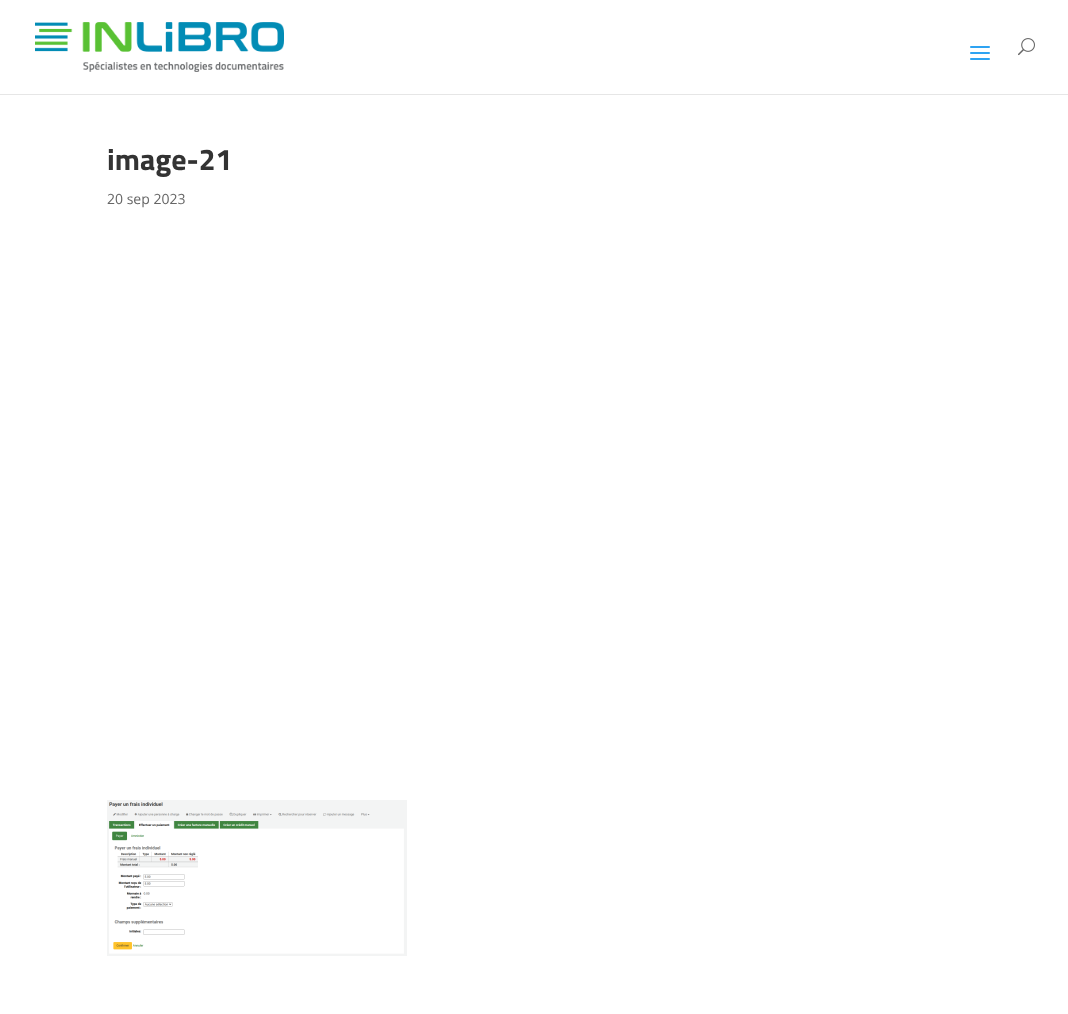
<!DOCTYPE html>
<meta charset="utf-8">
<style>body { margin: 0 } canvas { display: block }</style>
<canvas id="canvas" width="1068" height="1014"></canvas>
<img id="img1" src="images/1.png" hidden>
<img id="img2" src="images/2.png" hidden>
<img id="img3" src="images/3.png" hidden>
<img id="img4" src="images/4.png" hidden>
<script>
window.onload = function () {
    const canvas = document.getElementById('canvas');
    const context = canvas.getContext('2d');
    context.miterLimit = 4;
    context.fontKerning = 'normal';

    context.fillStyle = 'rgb(255, 255, 255)';
    context.fillRect(0, 0, 1068, 1014);
    context.fillStyle = 'rgb(230, 230, 230)';
    context.fillRect(0, 94, 1068, 1);
    context.drawImage(document.getElementById('img1'), 35, 22, 249, 50);
    context.drawImage(document.getElementById('img2'), 970, 46, 20, 14);
    context.drawImage(document.getElementById('img3'), 1018, 38, 17, 18);
    context.drawImage(document.getElementById('img4'), 107, 800, 300, 156);
    context.font = 'bold 30px Titillium Web';
    context.fillStyle = 'rgb(51, 51, 51)';
    context.fillText('image-21', 107, 170);
    context.font = '14px Open Sans';
    context.fillStyle = 'rgb(102, 102, 102)';
    context.fillText('20 sep 2023', 107, 204);
};
</script>
